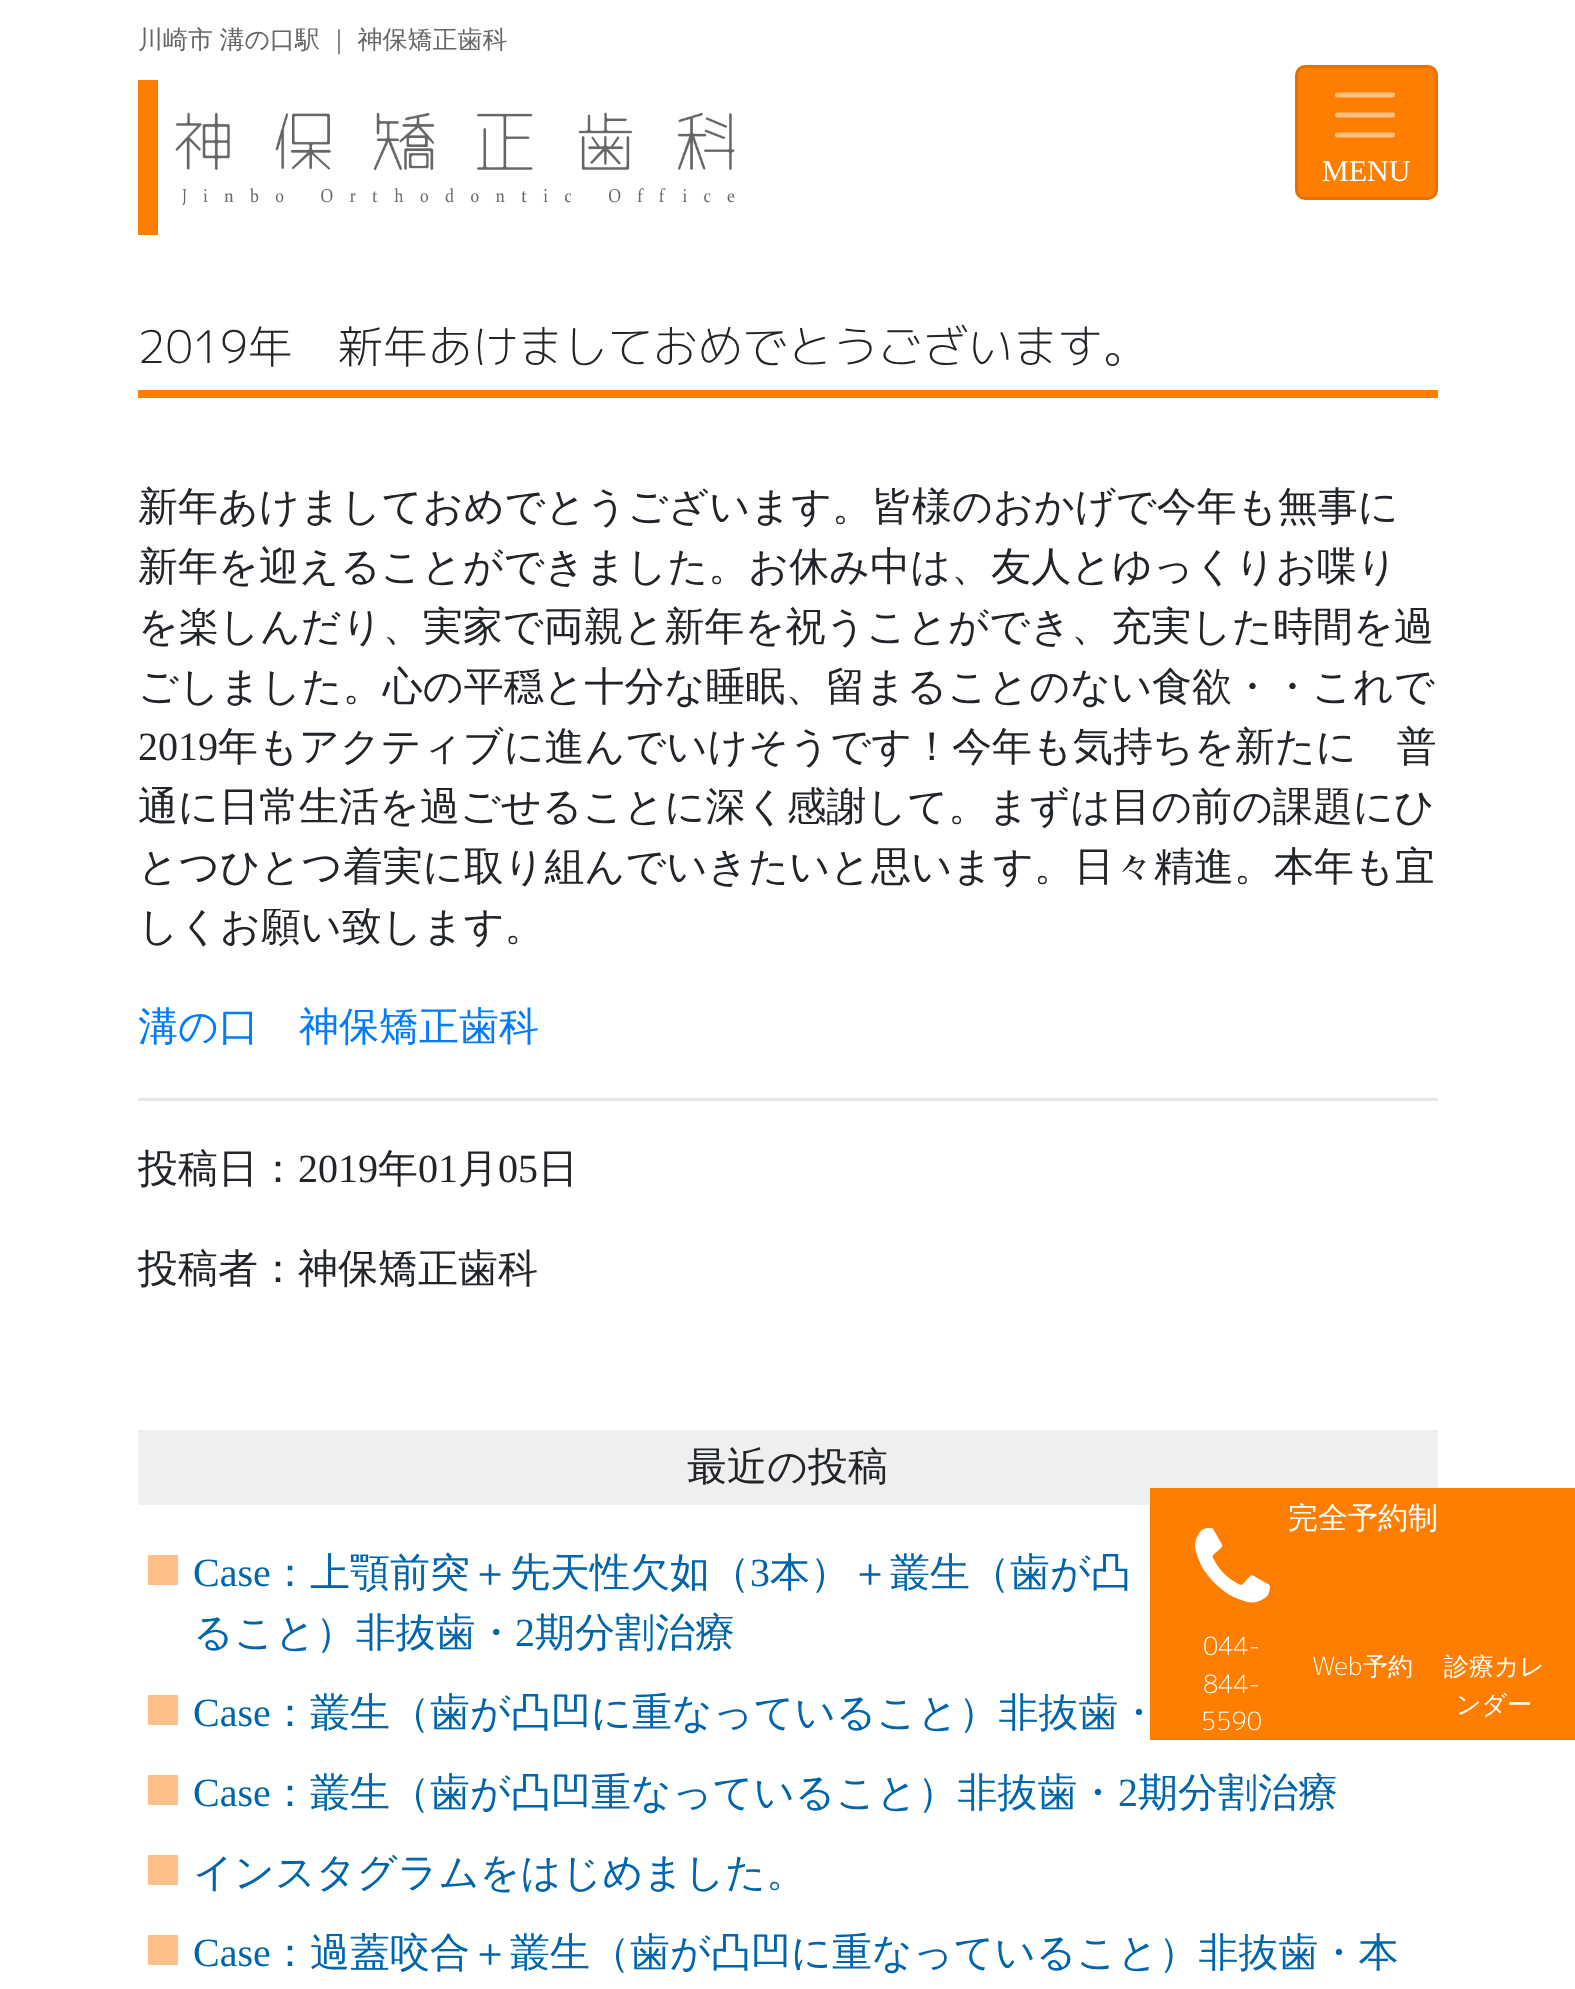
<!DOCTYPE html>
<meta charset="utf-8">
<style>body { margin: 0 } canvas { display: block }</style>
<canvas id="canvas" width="1575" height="1989"></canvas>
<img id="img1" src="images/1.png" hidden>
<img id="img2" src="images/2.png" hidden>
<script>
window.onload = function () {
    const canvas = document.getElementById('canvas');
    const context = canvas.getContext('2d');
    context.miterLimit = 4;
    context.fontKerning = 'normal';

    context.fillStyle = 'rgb(255, 255, 255)';
    context.fillRect(0, 0, 1575, 1989);
    context.drawImage(document.getElementById('img1'), 175, 112, 560, 93);
    context.fillStyle = 'rgb(255, 126, 0)';
    context.fillRect(138, 80, 20, 155);
    context.fillStyle = 'rgb(239, 239, 239)';
    context.fillRect(138, 1430, 1300, 75);
    context.fillStyle = 'rgb(255, 126, 0)';
    context.fillRect(1150, 1488, 425, 252);
    context.drawImage(document.getElementById('img2'), 1195, 1528, 75, 75);
    context.beginPath();
    context.roundRect(1295, 65, 143, 135, 10);
    context.fill();
    context.beginPath();
    context.roundRect(1296.5, 66.5, 140, 132, 8.5);
    context.strokeStyle = 'rgba(0, 0, 0, 0.1)';
    context.lineWidth = 3;
    context.stroke();
    context.beginPath();
    context.moveTo(1337.5, 95);
    context.lineTo(1392.5, 95);
    context.moveTo(1337.5, 115);
    context.lineTo(1392.5, 115);
    context.moveTo(1337.5, 135);
    context.lineTo(1392.5, 135);
    context.strokeStyle = 'rgb(255, 191, 128)';
    context.lineWidth = 5;
    context.lineCap = 'round';
    context.stroke();
    context.fillRect(138, 390, 1300, 8);
    context.fillStyle = 'rgb(230, 230, 230)';
    context.fillRect(138, 1098, 1300, 3);
    context.fillStyle = 'rgb(255, 192, 136)';
    context.fillRect(148, 1555, 30, 30);
    context.fillRect(148, 1695, 30, 30);
    context.fillRect(148, 1775, 30, 30);
    context.fillRect(148, 1855, 30, 30);
    context.fillRect(148, 1935, 30, 30);
    context.wordSpacing = '-1px';
    context.font = '500 25px WenQuanYi Zen Hei';
    context.fillStyle = 'rgb(102, 102, 102)';
    context.fillText('川崎市 溝の口駅 ｜ 神保矯正歯科', 138, 48);
    context.wordSpacing = '0px';
    context.font = '500 30px WenQuanYi Zen Hei';
    context.fillStyle = 'rgb(255, 255, 255)';
    context.fillText('完全予約制', 1288, 1528);
    context.font = '300 25px "M PLUS 1p"';
    context.fillText('044-', 1203, 1655);
    context.fillText('844-', 1203, 1693);
    context.fillText('5590', 1201, 1730);
    context.fillText('Web', 1312, 1675);
    context.font = '500 25px WenQuanYi Zen Hei';
    context.fillText('予約', 1363, 1675);
    context.fillText('診療カレ', 1444, 1675);
    context.fillText('ンダー', 1456, 1713);
    context.font = '30px Liberation Serif';
    context.fillText('MENU', 1322, 181);
    context.font = '300 45px "M PLUS 1p"';
    context.fillStyle = 'rgb(33, 37, 41)';
    context.fillText('2019年　新年あけましておめでとうございます。', 138, 363);
    context.font = '500 40px WenQuanYi Zen Hei';
    context.fillText('新年あけましておめでとうございます。皆様のおかげで今年も無事に', 138, 520);
    context.fillText('新年を迎えることができました。お休み中は、友人とゆっくりお喋り', 138, 580);
    context.fillText('を楽しんだり、実家で両親と新年を祝うことができ、充実した時間を過', 138, 640);
    context.fillText('ごしました。心の平穏と十分な睡眠、留まることのない食欲・・これで', 138, 700);
    context.font = '40px Liberation Serif';
    context.fillText('2019', 138, 760);
    context.font = '500 40px WenQuanYi Zen Hei';
    context.fillText('年もアクティブに進んでいけそうです！今年も気持ちを新たに　普', 218, 760);
    context.fillText('通に日常生活を過ごせることに深く感謝して。まずは目の前の課題にひ', 138, 820);
    context.fillText('とつひとつ着実に取り組んでいきたいと思います。日々精進。本年も宜', 138, 880);
    context.fillText('しくお願い致します。', 138, 940);
    context.fillStyle = 'rgb(0, 123, 255)';
    context.fillText('溝の口　神保矯正歯科', 138, 1040);
    context.fillStyle = 'rgb(33, 37, 41)';
    context.fillText('投稿日：', 138, 1182);
    context.font = '40px Liberation Serif';
    context.fillText('2019', 298, 1182);
    context.font = '500 40px WenQuanYi Zen Hei';
    context.fillText('年', 378, 1182);
    context.font = '40px Liberation Serif';
    context.fillText('01', 418, 1182);
    context.font = '500 40px WenQuanYi Zen Hei';
    context.fillText('月', 458, 1182);
    context.font = '40px Liberation Serif';
    context.fillText('05', 498, 1182);
    context.font = '500 40px WenQuanYi Zen Hei';
    context.fillText('日', 538, 1182);
    context.fillText('投稿者：神保矯正歯科', 138, 1282);
    context.fillText('最近の投稿', 687, 1480);
    context.font = '40px Liberation Serif';
    context.fillStyle = 'rgb(0, 101, 170)';
    context.fillText('Case', 193, 1586);
    context.font = '500 40px WenQuanYi Zen Hei';
    context.fillText('：上顎前突＋先天性欠如（', 270, 1586);
    context.font = '40px Liberation Serif';
    context.fillText('3', 750, 1586);
    context.font = '500 40px WenQuanYi Zen Hei';
    context.fillText('本）＋叢生（歯が凸', 770, 1586);
    context.fillText('ること）非抜歯・', 193, 1646);
    context.font = '40px Liberation Serif';
    context.fillText('2', 515, 1646);
    context.font = '500 40px WenQuanYi Zen Hei';
    context.fillText('期分割治療', 535, 1646);
    context.font = '40px Liberation Serif';
    context.fillText('Case', 193, 1726);
    context.font = '500 40px WenQuanYi Zen Hei';
    context.fillText('：叢生（歯が凸凹に重なっていること）非抜歯・', 270, 1726);
    context.font = '40px Liberation Serif';
    context.fillText('Case', 193, 1806);
    context.font = '500 40px WenQuanYi Zen Hei';
    context.fillText('：叢生（歯が凸凹重なっていること）非抜歯・', 270, 1806);
    context.font = '40px Liberation Serif';
    context.fillText('2', 1118, 1806);
    context.font = '500 40px WenQuanYi Zen Hei';
    context.fillText('期分割治療', 1138, 1806);
    context.fillText('インスタグラムをはじめました。', 193, 1886);
    context.font = '40px Liberation Serif';
    context.fillText('Case', 193, 1966);
    context.font = '500 40px WenQuanYi Zen Hei';
    context.fillText('：過蓋咬合＋叢生（歯が凸凹に重なっていること）非抜歯・本', 270, 1966);
};
</script>
